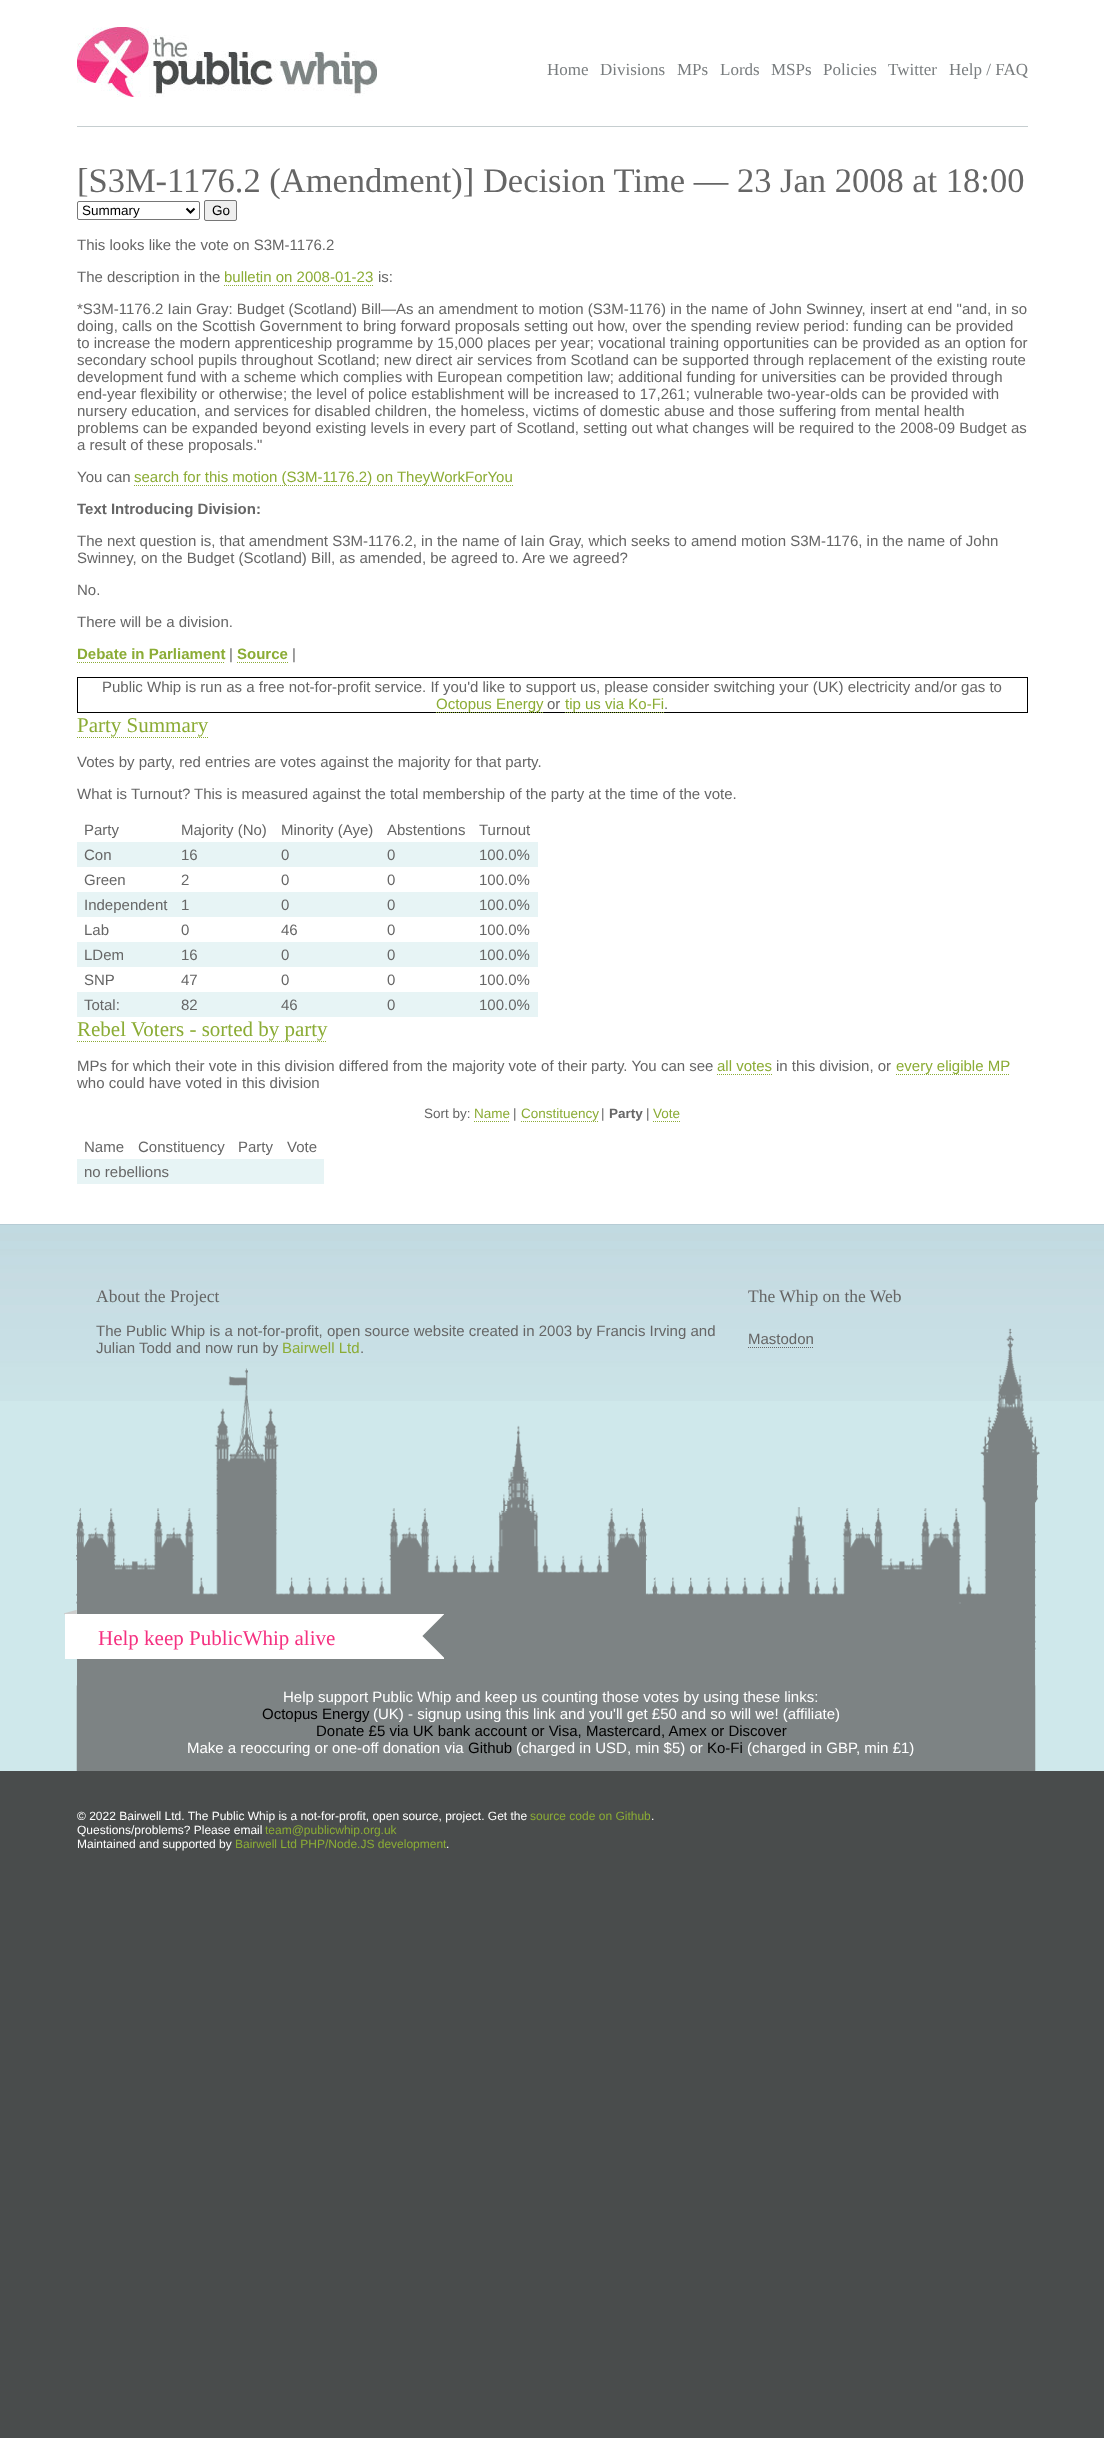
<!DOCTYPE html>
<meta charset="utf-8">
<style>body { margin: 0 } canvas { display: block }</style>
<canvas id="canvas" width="1104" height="2438"></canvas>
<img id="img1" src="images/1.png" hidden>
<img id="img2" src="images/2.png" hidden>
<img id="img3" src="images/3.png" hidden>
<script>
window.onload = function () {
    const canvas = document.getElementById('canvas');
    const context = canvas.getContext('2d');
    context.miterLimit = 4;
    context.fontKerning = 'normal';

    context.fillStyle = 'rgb(73, 76, 76)';
    context.fillRect(0, 0, 1104, 2438);
    context.fillStyle = 'rgb(255, 255, 255)';
    context.fillRect(0, 0, 1104, 1224);
    context.fillStyle = 'rgb(198, 206, 208)';
    context.fillRect(77, 126, 951, 1);
    context.drawImage(document.getElementById('img1'), 77, 27, 300, 70);
    context.beginPath();
    context.roundRect(77.5, 201.5, 122, 18, 1.5);
    context.strokeStyle = 'rgb(118, 118, 118)';
    context.stroke();
    context.beginPath();
    context.moveTo(186.5, 208.5);
    context.lineTo(190.5, 212.5);
    context.lineTo(194.5, 208.5);
    context.strokeStyle = 'rgb(0, 0, 0)';
    context.lineWidth = 2;
    context.stroke();
    context.fillStyle = 'rgb(239, 239, 239)';
    context.beginPath();
    context.roundRect(204.5, 200.5, 32, 20, 1.5);
    context.fill();
    context.strokeStyle = 'rgb(118, 118, 118)';
    context.lineWidth = 1;
    context.stroke();
    context.beginPath();
    context.moveTo(224, 285.5);
    context.lineTo(373, 285.5);
    context.strokeStyle = 'rgb(139, 172, 53)';
    context.setLineDash([1, 1]);
    context.stroke();
    context.beginPath();
    context.moveTo(134, 485.5);
    context.lineTo(513, 485.5);
    context.stroke();
    context.beginPath();
    context.moveTo(77, 662.5);
    context.lineTo(225, 662.5);
    context.stroke();
    context.beginPath();
    context.moveTo(237, 662.5);
    context.lineTo(288, 662.5);
    context.stroke();
    context.strokeStyle = 'rgb(0, 0, 0)';
    context.setLineDash([]);
    context.strokeRect(77.5, 677.5, 950, 35);
    context.beginPath();
    context.moveTo(436, 712.5);
    context.lineTo(543, 712.5);
    context.strokeStyle = 'rgb(139, 172, 53)';
    context.setLineDash([1, 1]);
    context.stroke();
    context.beginPath();
    context.moveTo(565, 712.5);
    context.lineTo(664, 712.5);
    context.stroke();
    context.beginPath();
    context.moveTo(77, 737.5);
    context.lineTo(208, 737.5);
    context.stroke();
    context.fillStyle = 'rgb(231, 244, 245)';
    context.fillRect(77, 842, 461, 25);
    context.fillRect(77, 892, 461, 25);
    context.fillRect(77, 942, 461, 25);
    context.fillRect(77, 992, 461, 25);
    context.beginPath();
    context.moveTo(77, 1041.5);
    context.lineTo(327, 1041.5);
    context.stroke();
    context.beginPath();
    context.moveTo(717, 1074.5);
    context.lineTo(772, 1074.5);
    context.stroke();
    context.beginPath();
    context.moveTo(896, 1074.5);
    context.lineTo(1009, 1074.5);
    context.stroke();
    context.beginPath();
    context.moveTo(474, 1121.5);
    context.lineTo(510, 1121.5);
    context.stroke();
    context.beginPath();
    context.moveTo(521, 1121.5);
    context.lineTo(598, 1121.5);
    context.stroke();
    context.beginPath();
    context.moveTo(653, 1121.5);
    context.lineTo(680, 1121.5);
    context.stroke();
    context.fillRect(77, 1159, 247, 25);
    context.fillStyle = 'rgb(207, 232, 235)';
    context.fillRect(0, 1401, 1104, 370);
    context.drawImage(document.getElementById('img2'), 0, 1225, 1104, 176);
    context.fillStyle = 'rgb(183, 204, 213)';
    context.fillRect(0, 1224, 1104, 1);
    context.drawImage(document.getElementById('img3'), 64, 1328, 976, 443);
    context.beginPath();
    context.moveTo(748, 1347.5);
    context.lineTo(813, 1347.5);
    context.strokeStyle = 'rgb(102, 102, 102)';
    context.stroke();
    context.font = '17px Liberation Serif';
    context.fillStyle = 'rgb(121, 125, 127)';
    context.fillText('Home', 547, 75);
    context.fillText('Divisions', 600, 75);
    context.fillText('MPs', 677, 75);
    context.fillText('Lords', 720, 75);
    context.fillText('MSPs', 771, 75);
    context.fillText('Policies', 823, 75);
    context.fillText('Twitter', 888, 75);
    context.fillText('Help / FAQ', 949, 75);
    context.font = '34.5px Liberation Serif';
    context.fillStyle = 'rgb(102, 102, 102)';
    context.fillText('[S3M-1176.2 (Amendment)] Decision Time — 23 Jan 2008 at 18:00', 77, 192);
    context.font = '13.5px Liberation Sans';
    context.fillStyle = 'rgb(0, 0, 0)';
    context.fillText('Summary', 82, 215);
    context.fillText('Go', 212, 215);
    context.font = '15px Liberation Sans';
    context.fillStyle = 'rgb(102, 102, 102)';
    context.fillText('This looks like the vote on S3M-1176.2', 77, 250);
    context.fillText('The description in the', 77, 282);
    context.fillStyle = 'rgb(139, 172, 53)';
    context.fillText('bulletin on 2008-01-23', 224, 282);
    context.fillStyle = 'rgb(102, 102, 102)';
    context.fillText('is:', 378, 282);
    context.fillText('*S3M-1176.2 Iain Gray: Budget (Scotland) Bill—As an amendment to motion (S3M-1176) in the name of John Swinney, insert at end "and, in so', 77, 314);
    context.fillText('doing, calls on the Scottish Government to bring forward proposals setting out how, over the spending review period: funding can be provided', 77, 331);
    context.fillText('to increase the modern apprenticeship programme by 15,000 places per year; vocational training opportunities can be provided as an option for', 77, 348);
    context.fillText('secondary school pupils throughout Scotland; new direct air services from Scotland can be supported through replacement of the existing route', 77, 365);
    context.fillText('development fund with a scheme which complies with European competition law; additional funding for universities can be provided through', 77, 382);
    context.fillText('end-year flexibility or otherwise; the level of police establishment will be increased to 17,261; vulnerable two-year-olds can be provided with', 77, 399);
    context.fillText('nursery education, and services for disabled children, the homeless, victims of domestic abuse and those suffering from mental health', 77, 416);
    context.fillText('problems can be expanded beyond existing levels in every part of Scotland, setting out what changes will be required to the 2008-09 Budget as', 77, 433);
    context.fillText('a result of these proposals."', 77, 450);
    context.fillText('You can', 77, 482);
    context.fillStyle = 'rgb(139, 172, 53)';
    context.fillText('search for this motion (S3M-1176.2) on TheyWorkForYou', 134, 482);
    context.font = 'bold 15px Liberation Sans';
    context.fillStyle = 'rgb(102, 102, 102)';
    context.fillText('Text Introducing Division:', 77, 514);
    context.font = '15px Liberation Sans';
    context.fillText('The next question is, that amendment S3M-1176.2, in the name of Iain Gray, which seeks to amend motion S3M-1176, in the name of John', 77, 546);
    context.fillText('Swinney, on the Budget (Scotland) Bill, as amended, be agreed to. Are we agreed?', 77, 563);
    context.fillText('No.', 77, 595);
    context.fillText('There will be a division.', 77, 627);
    context.font = 'bold 15px Liberation Sans';
    context.fillStyle = 'rgb(139, 172, 53)';
    context.fillText('Debate in Parliament', 77, 659);
    context.font = '15px Liberation Sans';
    context.fillStyle = 'rgb(102, 102, 102)';
    context.fillText('|', 229, 659);
    context.font = 'bold 15px Liberation Sans';
    context.fillStyle = 'rgb(139, 172, 53)';
    context.fillText('Source', 237, 659);
    context.font = '15px Liberation Sans';
    context.fillStyle = 'rgb(102, 102, 102)';
    context.fillText('|', 292, 659);
    context.fillText('Public Whip is run as a free not-for-profit service. If you\'d like to support us, please consider switching your (UK) electricity and/or gas to', 102, 692);
    context.fillStyle = 'rgb(139, 172, 53)';
    context.fillText('Octopus Energy', 436, 709);
    context.fillStyle = 'rgb(102, 102, 102)';
    context.fillText('or', 547, 709);
    context.fillStyle = 'rgb(139, 172, 53)';
    context.fillText('tip us via Ko-Fi', 565, 709);
    context.fillStyle = 'rgb(102, 102, 102)';
    context.fillText('.', 664, 709);
    context.font = '21px Liberation Serif';
    context.fillStyle = 'rgb(139, 172, 53)';
    context.fillText('Party Summary', 77, 732);
    context.font = '15px Liberation Sans';
    context.fillStyle = 'rgb(102, 102, 102)';
    context.fillText('Votes by party, red entries are votes against the majority for that party.', 77, 767);
    context.fillText('What is Turnout?', 77, 799);
    context.fillText('This is measured against the total membership of the party at the time of the vote.', 194, 799);
    context.fillText('Party', 84, 835);
    context.fillText('Majority (No)', 181, 835);
    context.fillText('Minority (Aye)', 281, 835);
    context.fillText('Abstentions', 387, 835);
    context.fillText('Turnout', 479, 835);
    context.fillText('Con', 84, 860);
    context.fillText('16', 181, 860);
    context.fillText('0', 281, 860);
    context.fillText('0', 387, 860);
    context.fillText('100.0%', 479, 860);
    context.fillText('Green', 84, 885);
    context.fillText('2', 181, 885);
    context.fillText('0', 281, 885);
    context.fillText('0', 387, 885);
    context.fillText('100.0%', 479, 885);
    context.fillText('Independent', 84, 910);
    context.fillText('1', 181, 910);
    context.fillText('0', 281, 910);
    context.fillText('0', 387, 910);
    context.fillText('100.0%', 479, 910);
    context.fillText('Lab', 84, 935);
    context.fillText('0', 181, 935);
    context.fillText('46', 281, 935);
    context.fillText('0', 387, 935);
    context.fillText('100.0%', 479, 935);
    context.fillText('LDem', 84, 960);
    context.fillText('16', 181, 960);
    context.fillText('0', 281, 960);
    context.fillText('0', 387, 960);
    context.fillText('100.0%', 479, 960);
    context.fillText('SNP', 84, 985);
    context.fillText('47', 181, 985);
    context.fillText('0', 281, 985);
    context.fillText('0', 387, 985);
    context.fillText('100.0%', 479, 985);
    context.fillText('Total:', 84, 1010);
    context.fillText('82', 181, 1010);
    context.fillText('46', 281, 1010);
    context.fillText('0', 387, 1010);
    context.fillText('100.0%', 479, 1010);
    context.font = '21px Liberation Serif';
    context.fillStyle = 'rgb(139, 172, 53)';
    context.fillText('Rebel Voters - sorted by party', 77, 1036);
    context.font = '15px Liberation Sans';
    context.fillStyle = 'rgb(102, 102, 102)';
    context.fillText('MPs for which their vote in this division differed from the majority vote of their party. You can see', 77, 1071);
    context.fillStyle = 'rgb(139, 172, 53)';
    context.fillText('all votes', 717, 1071);
    context.fillStyle = 'rgb(102, 102, 102)';
    context.fillText('in this division, or', 776, 1071);
    context.fillStyle = 'rgb(139, 172, 53)';
    context.fillText('every eligible MP', 896, 1071);
    context.fillStyle = 'rgb(102, 102, 102)';
    context.fillText('who could have voted in this division', 77, 1088);
    context.font = '13.5px Liberation Sans';
    context.fillText('Sort by:', 424, 1118);
    context.fillStyle = 'rgb(139, 172, 53)';
    context.fillText('Name', 474, 1118);
    context.fillStyle = 'rgb(102, 102, 102)';
    context.fillText('|', 513, 1118);
    context.fillStyle = 'rgb(139, 172, 53)';
    context.fillText('Constituency', 521, 1118);
    context.fillStyle = 'rgb(102, 102, 102)';
    context.fillText('|', 601, 1118);
    context.font = 'bold 13.5px Liberation Sans';
    context.fillText('Party', 609, 1118);
    context.font = '13.5px Liberation Sans';
    context.fillText('|', 646, 1118);
    context.fillStyle = 'rgb(139, 172, 53)';
    context.fillText('Vote', 653, 1118);
    context.font = '15px Liberation Sans';
    context.fillStyle = 'rgb(102, 102, 102)';
    context.fillText('Name', 84, 1152);
    context.fillText('Constituency', 138, 1152);
    context.fillText('Party', 238, 1152);
    context.fillText('Vote', 287, 1152);
    context.fillText('no rebellions', 84, 1177);
    context.font = '17.5px Liberation Serif';
    context.fillText('About the Project', 96, 1302);
    context.font = '15px Liberation Sans';
    context.fillText('The Public Whip is a not-for-profit, open source website created in 2003 by Francis Irving and', 96, 1336);
    context.fillText('Julian Todd and now run by', 96, 1353);
    context.fillStyle = 'rgb(139, 172, 53)';
    context.fillText('Bairwell Ltd', 282, 1353);
    context.fillStyle = 'rgb(102, 102, 102)';
    context.fillText('.', 360, 1353);
    context.font = '17.5px Liberation Serif';
    context.fillText('The Whip on the Web', 748, 1302);
    context.font = '15px Liberation Sans';
    context.fillText('Mastodon', 748, 1344);
    context.font = '21px Liberation Serif';
    context.fillStyle = 'rgb(245, 49, 129)';
    context.fillText('Help keep PublicWhip alive', 98, 1645);
    context.font = '15px Liberation Sans';
    context.fillStyle = 'rgb(255, 255, 255)';
    context.fillText('Help support Public Whip and keep us counting those votes by using these links:', 283, 1702);
    context.fillStyle = 'rgb(0, 0, 0)';
    context.fillText('Octopus Energy', 262, 1719);
    context.fillStyle = 'rgb(255, 255, 255)';
    context.fillText('(UK) - signup using this link and you\'ll get £50 and so will we! (affiliate)', 373, 1719);
    context.fillStyle = 'rgb(0, 0, 0)';
    context.fillText('Donate £5 via UK bank account or Visa, Mastercard, Amex or Discover', 316, 1736);
    context.fillStyle = 'rgb(255, 255, 255)';
    context.fillText('Make a reoccuring or one-off donation via', 187, 1753);
    context.fillStyle = 'rgb(0, 0, 0)';
    context.fillText('Github', 468, 1753);
    context.fillStyle = 'rgb(255, 255, 255)';
    context.fillText('(charged in USD, min $5) or', 516, 1753);
    context.fillStyle = 'rgb(0, 0, 0)';
    context.fillText('Ko-Fi', 707, 1753);
    context.fillStyle = 'rgb(255, 255, 255)';
    context.fillText('(charged in GBP, min £1)', 747, 1753);
    context.font = '12px Liberation Sans';
    context.fillText('© 2022 Bairwell Ltd. The Public Whip is a not-for-profit, open source, project. Get the', 77, 1820);
    context.fillStyle = 'rgb(139, 172, 53)';
    context.fillText('source code on Github', 530, 1820);
    context.fillStyle = 'rgb(255, 255, 255)';
    context.fillText('.', 651, 1820);
    context.fillText('Questions/problems? Please email', 77, 1834);
    context.fillStyle = 'rgb(139, 172, 53)';
    context.fillText('team@publicwhip.org.uk', 265, 1834);
    context.fillStyle = 'rgb(255, 255, 255)';
    context.fillText('Maintained and supported by', 77, 1848);
    context.fillStyle = 'rgb(139, 172, 53)';
    context.fillText('Bairwell Ltd PHP/Node.JS development', 235, 1848);
    context.fillStyle = 'rgb(255, 255, 255)';
    context.fillText('.', 446, 1848);
};
</script>
